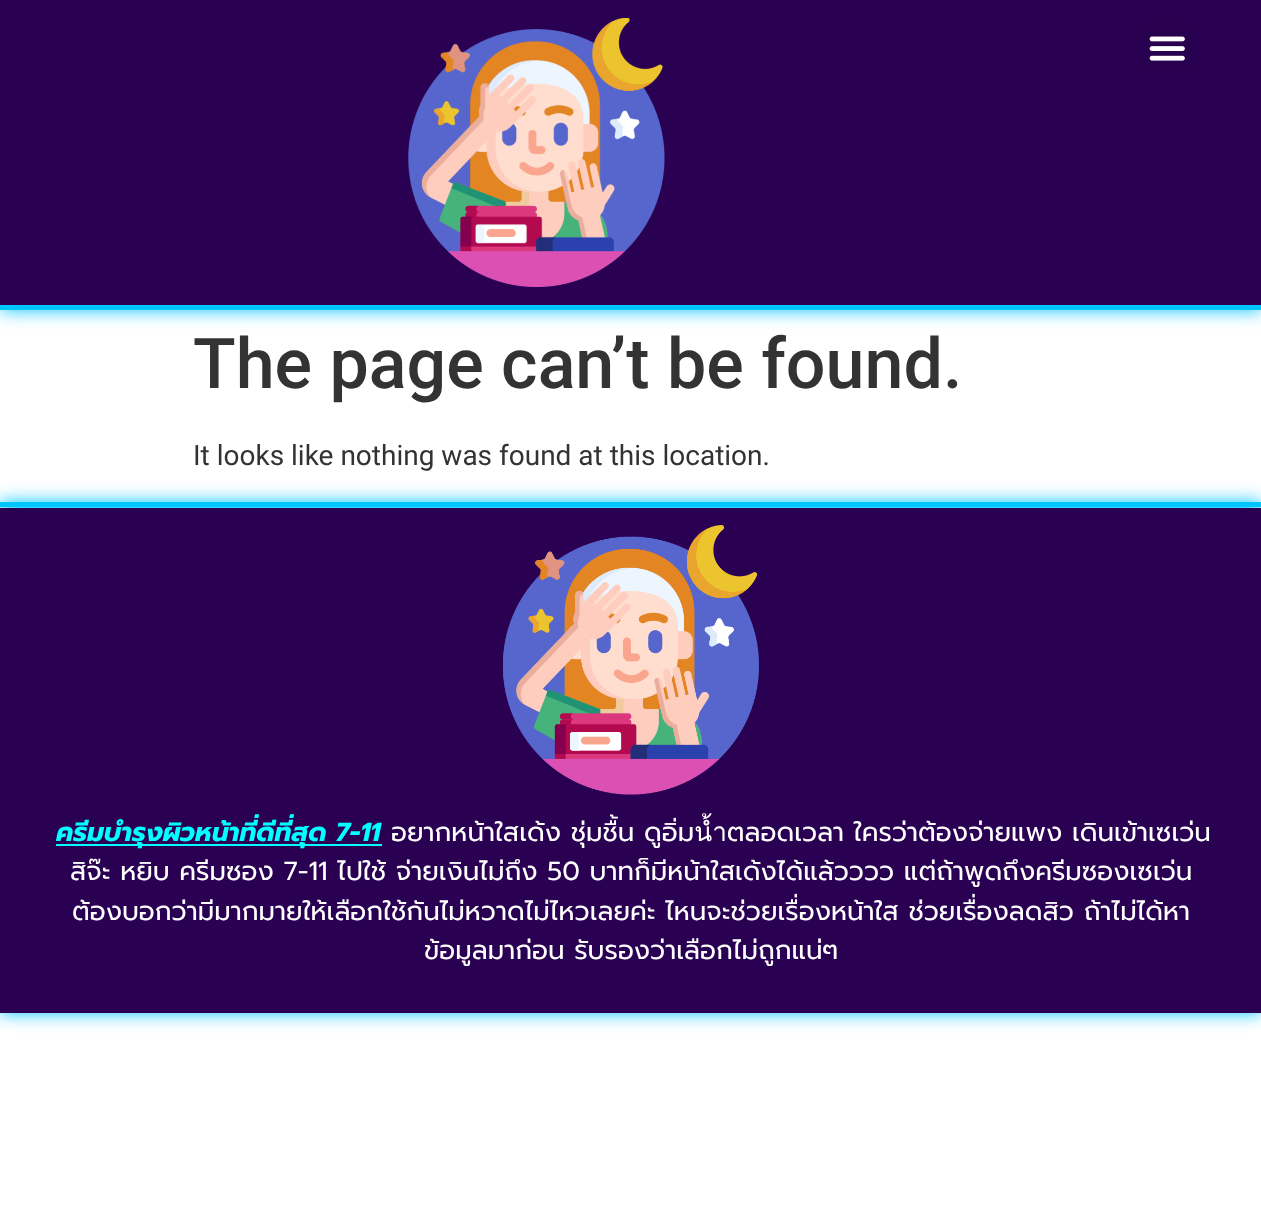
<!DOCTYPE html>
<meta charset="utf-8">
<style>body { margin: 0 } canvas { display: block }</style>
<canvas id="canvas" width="1261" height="1225"></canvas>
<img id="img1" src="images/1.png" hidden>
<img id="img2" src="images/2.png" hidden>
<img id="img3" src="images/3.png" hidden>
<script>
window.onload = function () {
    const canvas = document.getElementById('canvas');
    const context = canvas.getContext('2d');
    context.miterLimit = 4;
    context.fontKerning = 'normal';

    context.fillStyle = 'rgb(255, 255, 255)';
    context.fillRect(0, 0, 1261, 1225);
    context.fillStyle = 'rgb(0, 198, 255)';
    context.filter = 'blur(9px)';
    context.beginPath();
    context.rect(0, 0, 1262, 310);
    context.fill();
    context.filter = 'none';
    context.fillStyle = 'rgb(42, 0, 83)';
    context.fillRect(0, 0, 1261, 305);
    context.fillStyle = 'rgb(0, 198, 255)';
    context.fillRect(0, 305, 1261, 5);
    context.drawImage(document.getElementById('img1'), 408, 18, 257, 269);
    context.fillStyle = 'rgb(40, 0, 79)';
    context.beginPath();
    context.roundRect(1138, 18, 57, 57, 5);
    context.fill();
    context.drawImage(document.getElementById('img2'), 1149, 36, 36, 25);
    context.fillStyle = 'rgb(0, 198, 255)';
    context.filter = 'blur(9px)';
    context.beginPath();
    context.rect(0, 502, 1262, 511);
    context.fill();
    context.filter = 'none';
    context.fillStyle = 'rgb(42, 0, 83)';
    context.fillRect(0, 508, 1261, 505);
    context.fillStyle = 'rgb(0, 198, 255)';
    context.fillRect(0, 502, 1261, 5);
    context.drawImage(document.getElementById('img3'), 503, 525, 256, 270);
    context.fillStyle = 'rgb(0, 255, 255)';
    context.fillRect(56, 844, 326, 2);
    context.font = '500 70px Roboto';
    context.fillStyle = 'rgb(51, 51, 51)';
    context.fillText('The page can’t be found.', 193, 388);
    context.font = '28px Roboto';
    context.fillText('It looks like nothing was found at this location.', 193, 465);
    context.font = 'italic bold 26.25px Prompt';
    context.fillStyle = 'rgb(0, 255, 255)';
    context.fillText('ครีมบํารุงผิวหน้าที่ดีที่สุด 7-11', 56, 841);
    context.font = '26.25px Prompt';
    context.fillStyle = 'rgb(255, 255, 255)';
    context.fillText('อยากหน้าใสเด้ง ชุ่มชื้น ดูอิ่มน้ำตลอดเวลา ใครว่าต้องจ่ายแพง เดินเข้าเซเว่น', 391, 841);
    context.fillText('สิจ๊ะ หยิบ ครีมซอง 7-11 ไปใช้ จ่ายเงินไม่ถึง 50 บาทก็มีหน้าใสเด้งได้แล้วววว แต่ถ้าพูดถึงครีมซองเซเว่น', 70, 880);
    context.fillText('ต้องบอกว่ามีมากมายให้เลือกใช้กันไม่หวาดไม่ไหวเลยค่ะ ไหนจะช่วยเรื่องหน้าใส ช่วยเรื่องลดสิว ถ้าไม่ได้หา', 72, 920);
    context.fillText('ข้อมูลมาก่อน รับรองว่าเลือกไม่ถูกแน่ๆ', 424, 959);
};
</script>
